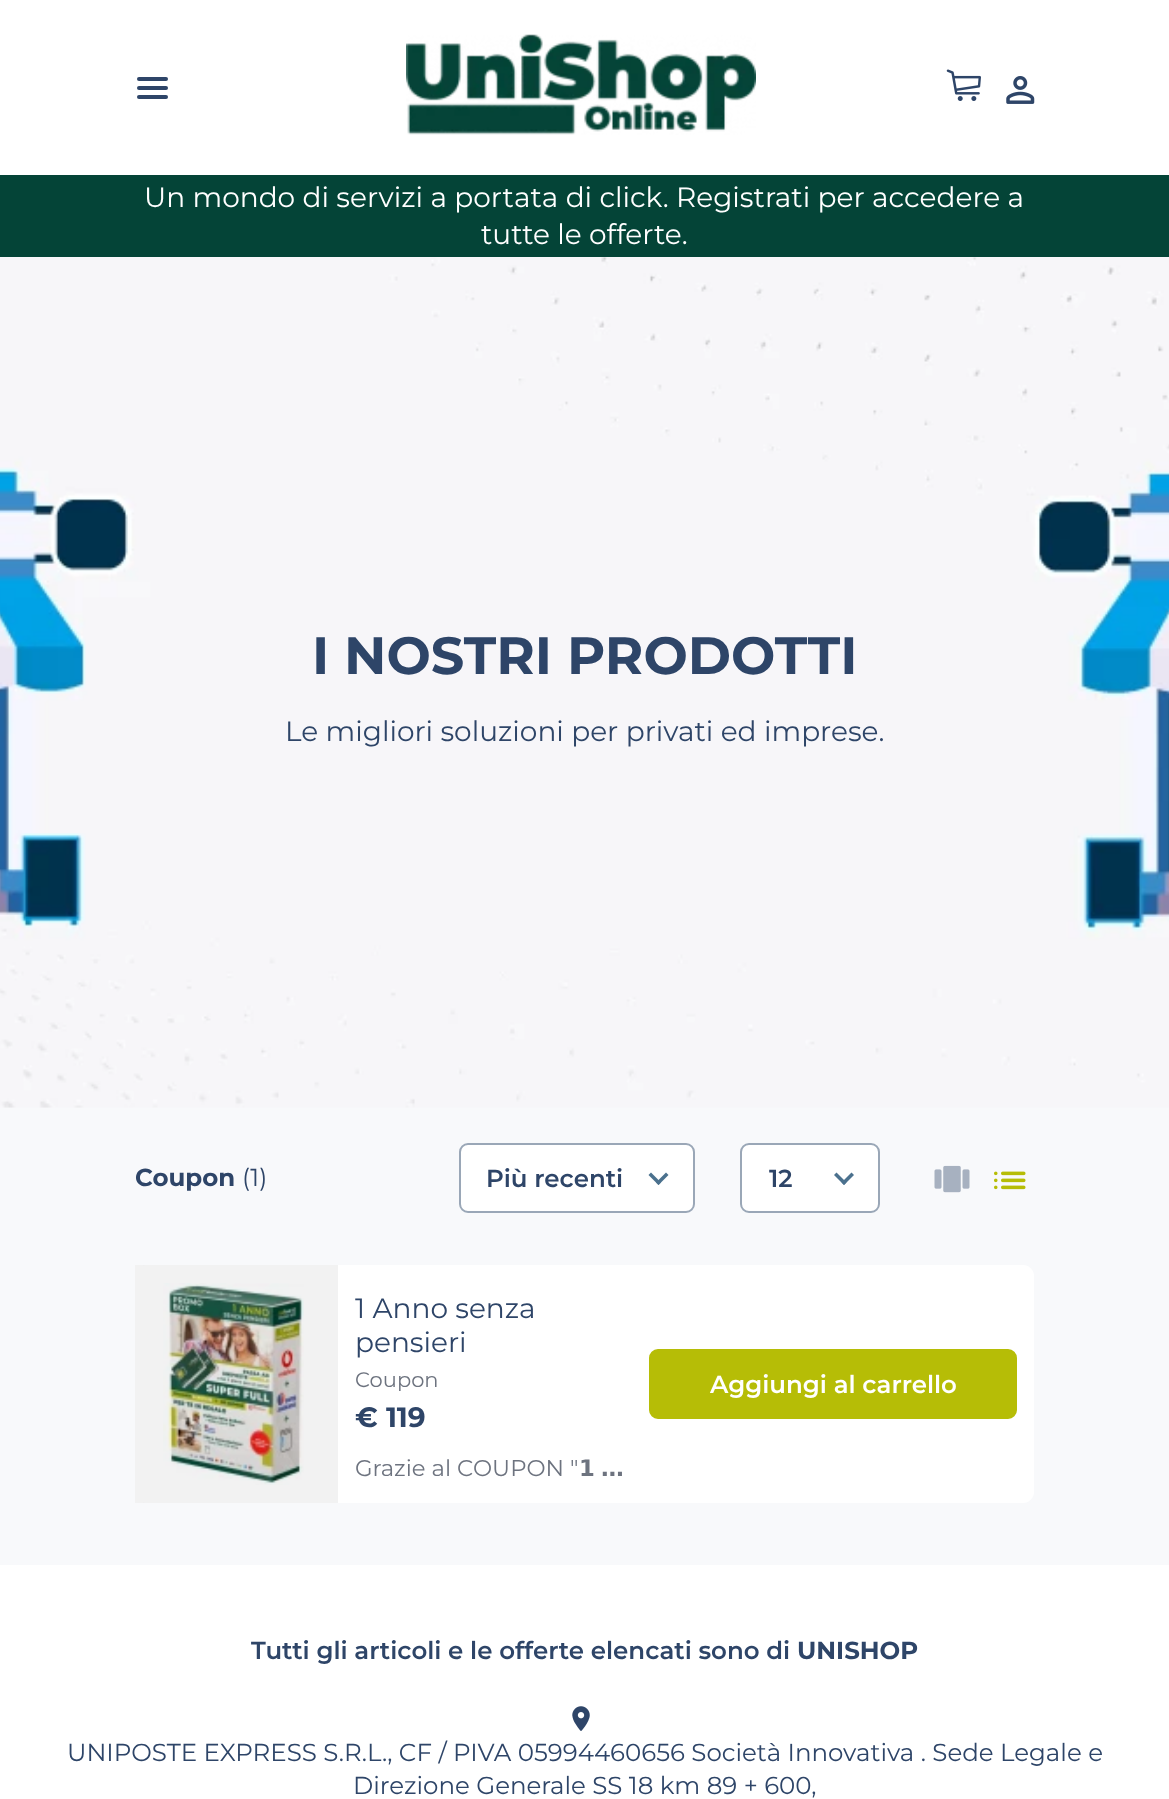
<!DOCTYPE html>
<meta charset="utf-8">
<style>body { margin: 0 } canvas { display: block }</style>
<canvas id="canvas" width="1169" height="1799"></canvas>
<img id="img1" src="images/1.png" hidden>
<img id="img2" src="images/2.png" hidden>
<img id="img3" src="images/3.png" hidden>
<img id="img4" src="images/4.png" hidden>
<img id="img5" src="images/5.png" hidden>
<img id="img6" src="images/6.png" hidden>
<img id="img7" src="images/7.png" hidden>
<img id="img8" src="images/8.png" hidden>
<script>
window.onload = function () {
    const canvas = document.getElementById('canvas');
    const context = canvas.getContext('2d');
    context.miterLimit = 4;
    context.fontKerning = 'normal';

    context.fillStyle = 'rgb(248, 249, 251)';
    context.fillRect(0, 0, 1169, 1799);
    context.fillStyle = 'rgb(255, 255, 255)';
    context.fillRect(0, 0, 1169, 175);
    context.fillStyle = 'rgb(46, 69, 104)';
    context.beginPath();
    context.roundRect(137, 77, 31, 4, 2);
    context.fill();
    context.beginPath();
    context.roundRect(137, 95, 31, 4, 2);
    context.fill();
    context.beginPath();
    context.roundRect(137, 86, 31, 4, 2);
    context.fill();
    context.drawImage(document.getElementById('img1'), 406, 34, 350, 101);
    context.drawImage(document.getElementById('img2'), 946, 69, 35, 32);
    context.drawImage(document.getElementById('img3'), 1006, 76, 29, 28);
    context.fillStyle = 'rgb(4, 68, 55)';
    context.fillRect(0, 175, 1169, 82);
    context.drawImage(document.getElementById('img4'), 0, 257, 1169, 851);
    context.fillStyle = 'rgb(255, 255, 255)';
    context.beginPath();
    context.roundRect(460, 1144, 234, 68, 8);
    context.fill();
    context.strokeStyle = 'rgb(154, 167, 183)';
    context.lineWidth = 2;
    context.stroke();
    context.fillStyle = 'rgb(75, 113, 142)';
    context.beginPath();
    context.moveTo(666, 1172.5);
    context.lineTo(668.5, 1175);
    context.lineTo(658.5, 1185);
    context.lineTo(656, 1182.5);
    context.closePath();
    context.fill();
    context.beginPath();
    context.moveTo(651, 1172.5);
    context.lineTo(661, 1182.5);
    context.lineTo(658.5, 1185);
    context.lineTo(648.5, 1175);
    context.closePath();
    context.fill();
    context.fillStyle = 'rgb(255, 255, 255)';
    context.beginPath();
    context.roundRect(741, 1144, 138, 68, 8);
    context.fill();
    context.stroke();
    context.fillStyle = 'rgb(75, 113, 142)';
    context.beginPath();
    context.moveTo(851.5, 1172.5);
    context.lineTo(854, 1175);
    context.lineTo(844, 1185);
    context.lineTo(841.5, 1182.5);
    context.closePath();
    context.fill();
    context.beginPath();
    context.moveTo(836.5, 1172.5);
    context.lineTo(846.5, 1182.5);
    context.lineTo(844, 1185);
    context.lineTo(834, 1175);
    context.closePath();
    context.fill();
    context.drawImage(document.getElementById('img5'), 934, 1165, 36, 28);
    context.drawImage(document.getElementById('img6'), 994, 1171, 32, 19);
    context.fillStyle = 'rgb(255, 255, 255)';
    context.beginPath();
    context.roundRect(135, 1265, 899, 238, 11);
    context.fill();
    context.fillRect(135, 1265, 8, 238);
    context.drawImage(document.getElementById('img7'), 163, 1283, 141, 202);
    context.fillStyle = 'rgba(0, 0, 0, 0.05)';
    context.fillRect(135, 1265, 203, 238);
    context.fillStyle = 'rgb(182, 189, 6)';
    context.beginPath();
    context.roundRect(650, 1350, 366, 68, 8);
    context.fill();
    context.strokeStyle = 'rgb(182, 189, 6)';
    context.stroke();
    context.fillStyle = 'rgb(255, 255, 255)';
    context.fillRect(0, 1565, 1169, 234);
    context.drawImage(document.getElementById('img8'), 572, 1706, 18, 25);
    context.font = '28px Montserrat';
    context.fillText('Un mondo di servizi a portata di click. Registrati per accedere a', 144, 207);
    context.fillText('tutte le offerte.', 481, 244);
    context.font = 'bold 52.5px Montserrat';
    context.fillStyle = 'rgb(46, 69, 104)';
    context.fillText('I NOSTRI PRODOTTI', 312, 674);
    context.font = '28px Montserrat';
    context.fillText('Le migliori soluzioni per privati ed imprese.', 285, 741);
    context.font = 'bold 24.5px Montserrat';
    context.fillText('Coupon', 135, 1186);
    context.font = '24.5px Montserrat';
    context.fillText('(1)', 242, 1186);
    context.font = '600 24.5px Montserrat';
    context.fillText('Più recenti', 486, 1187);
    context.fillText('12', 769, 1187);
    context.font = '28px Montserrat';
    context.fillText('1 Anno senza', 355, 1318);
    context.fillText('pensieri', 355, 1352);
    context.font = '21px Montserrat';
    context.fillStyle = 'rgb(109, 115, 127)';
    context.fillText('Coupon', 355, 1387);
    context.font = 'bold 28px Montserrat';
    context.fillStyle = 'rgb(46, 69, 104)';
    context.fillText('€ 119', 355, 1427);
    context.font = '22.75px Montserrat';
    context.fillStyle = 'rgb(109, 115, 127)';
    context.fillText('Grazie al COUPON "', 355, 1476);
    context.font = 'bold 22.75px DejaVu Sans';
    context.fillText('𝟭', 579, 1476);
    context.fillText('…', 601, 1476);
    context.font = '600 24.5px Montserrat';
    context.fillStyle = 'rgb(255, 255, 255)';
    context.fillText('Aggiungi al carrello', 710, 1393);
    context.fillStyle = 'rgb(46, 69, 104)';
    context.fillText('Tutti gli articoli e le offerte elencati sono di', 251, 1659);
    context.font = 'bold 24.5px Montserrat';
    context.fillText('UNISHOP', 797, 1659);
    context.font = '24.5px Montserrat';
    context.fillText('UNIPOSTE EXPRESS S.R.L., CF / PIVA 05994460656 Società Innovativa . Sede Legale e', 67, 1761);
    context.fillText('Direzione Generale SS 18 km 89 + 600,', 353, 1794);
};
</script>
